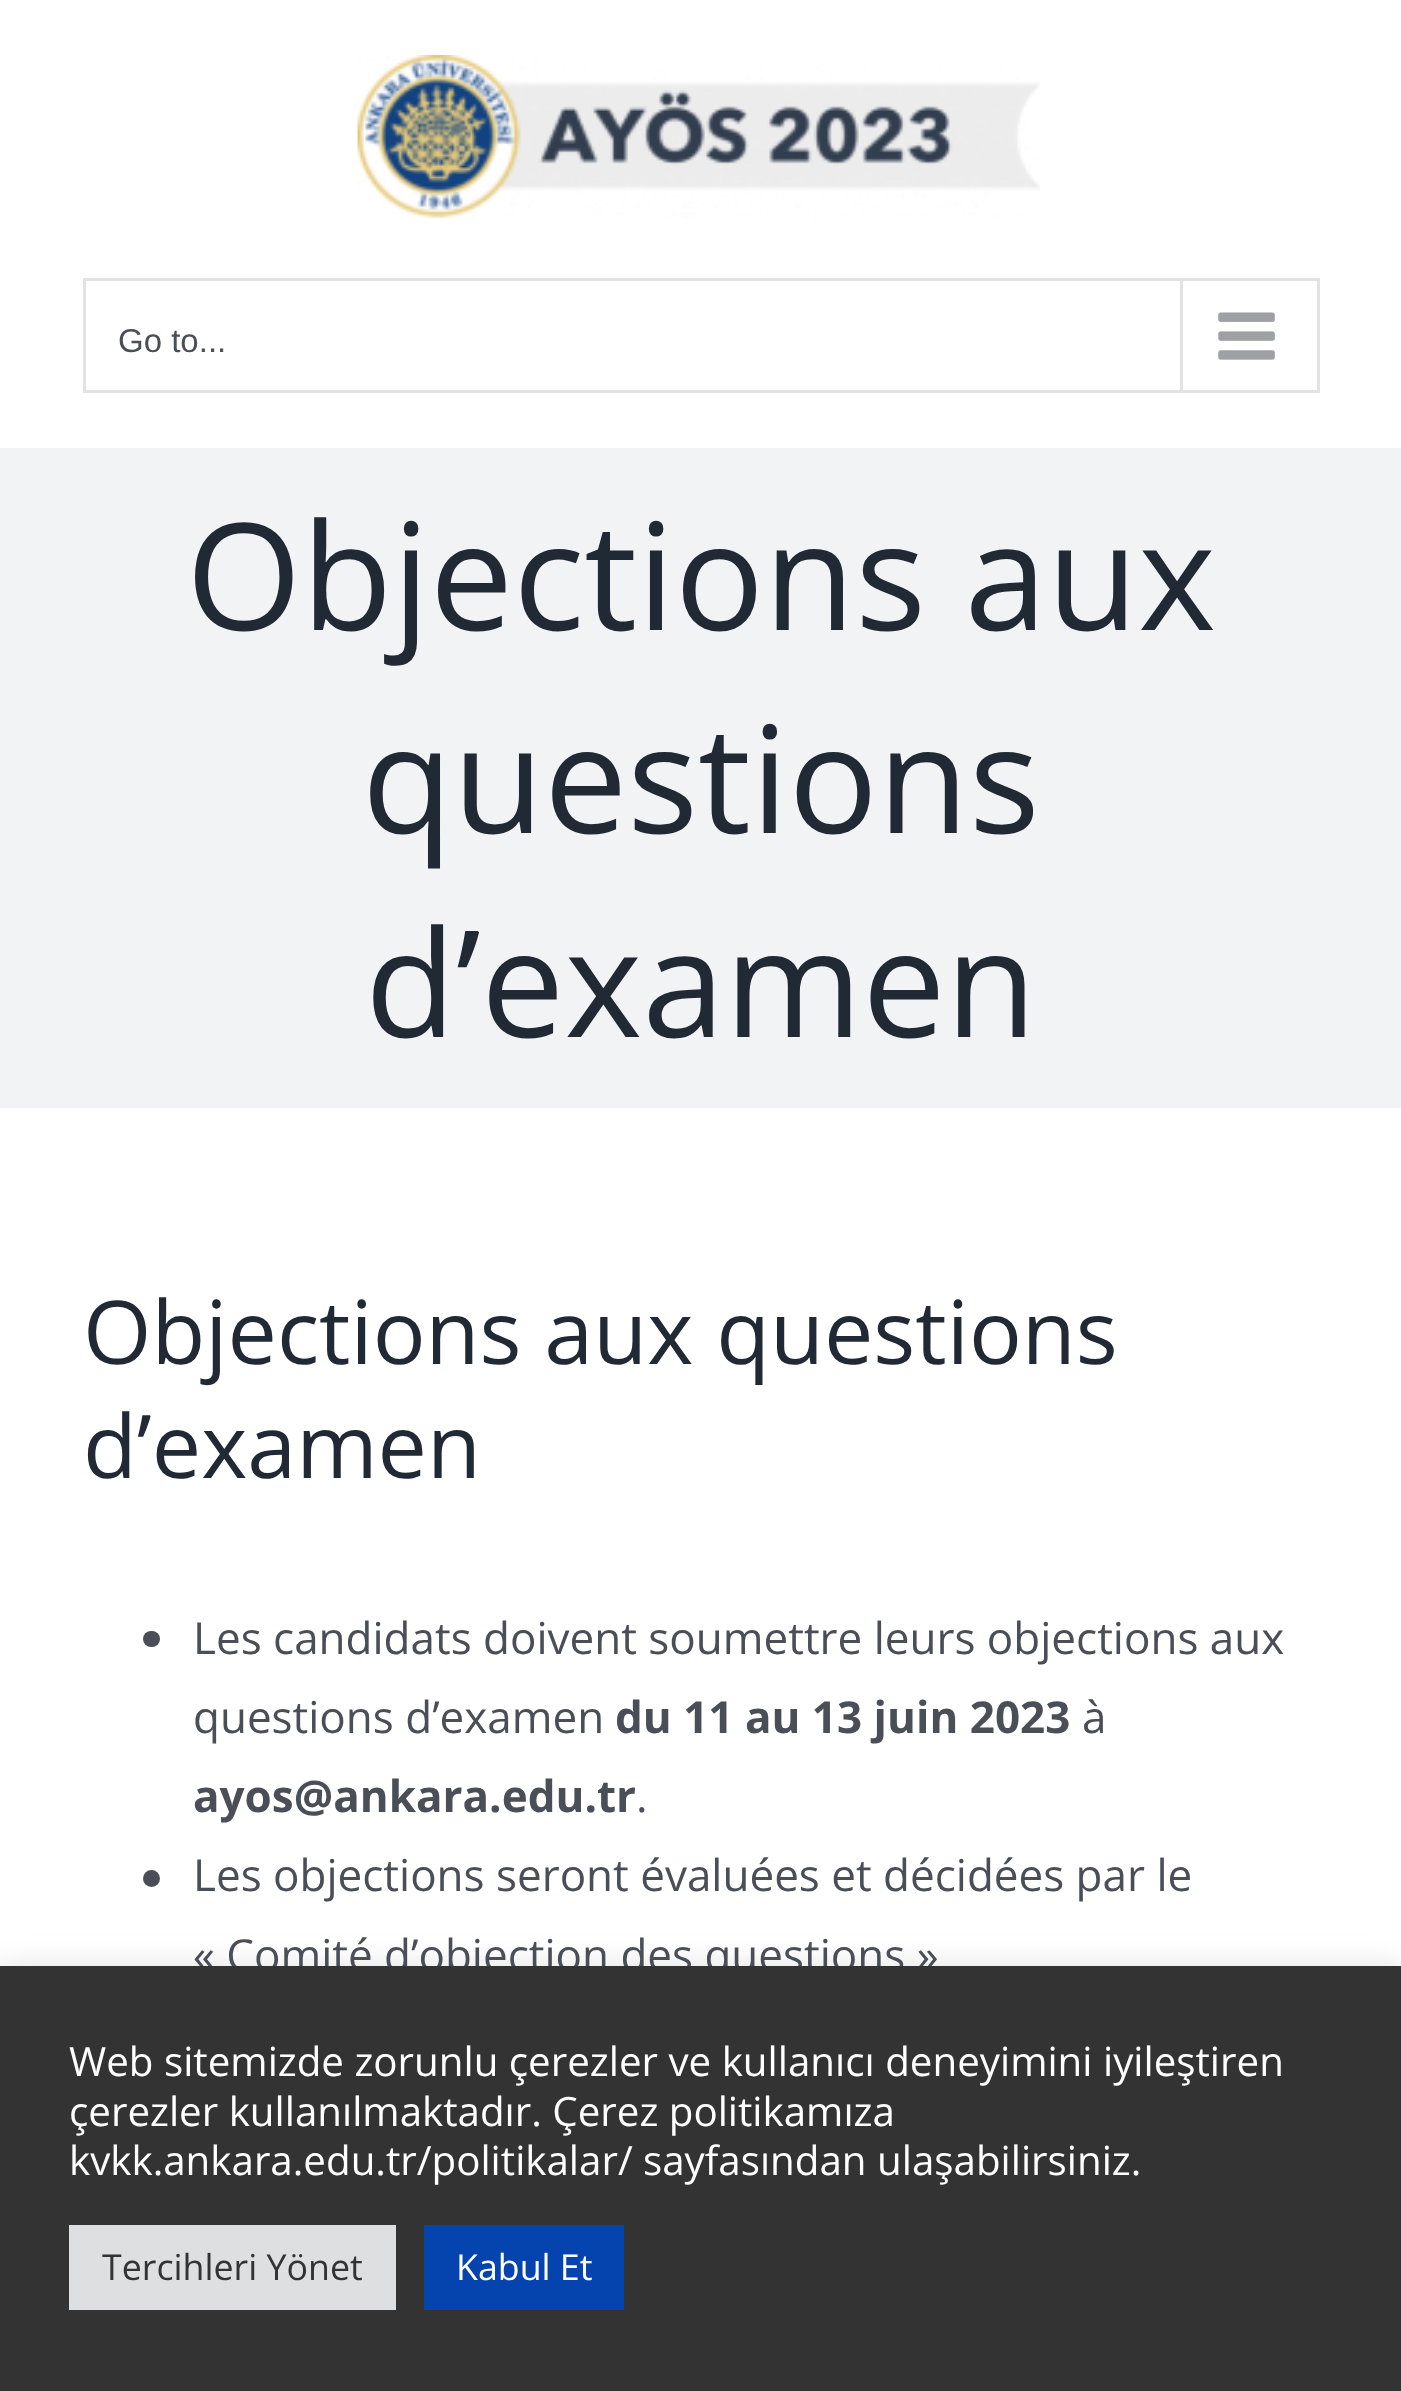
<!DOCTYPE html>
<meta charset="utf-8">
<style>body { margin: 0 } canvas { display: block }</style>
<canvas id="canvas" width="1401" height="2391"></canvas>
<img id="img1" src="images/1.png" hidden>
<img id="img2" src="images/2.png" hidden>
<script>
window.onload = function () {
    const canvas = document.getElementById('canvas');
    const context = canvas.getContext('2d');
    context.miterLimit = 4;
    context.fontKerning = 'normal';

    context.fillStyle = 'rgb(242, 243, 245)';
    context.fillRect(0, 0, 1401, 2391);
    context.fillStyle = 'rgb(255, 255, 255)';
    context.fillRect(0, 0, 1401, 448);
    context.drawImage(document.getElementById('img1'), 357, 55, 683, 164);
    context.strokeStyle = 'rgb(226, 226, 226)';
    context.lineWidth = 3;
    context.strokeRect(84.5, 279.5, 1234, 112);
    context.fillStyle = 'rgb(226, 226, 226)';
    context.fillRect(1180, 281, 3, 110);
    context.drawImage(document.getElementById('img2'), 1218, 312, 57, 48);
    context.fillStyle = 'rgb(255, 255, 255)';
    context.fillRect(0, 1108, 1401, 858);
    context.fillStyle = 'rgb(74, 78, 87)';
    context.beginPath();
    context.roundRect(143, 1631, 17, 16, 8);
    context.fill();
    context.beginPath();
    context.arc(151.5, 1878.5, 8.5, 0, 2 * Math.PI);
    context.fill();
    context.fillStyle = 'rgba(172, 171, 171, 0.3)';
    context.filter = 'blur(14px)';
    context.beginPath();
    context.rect(0, 1964, 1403, 426);
    context.fill();
    context.filter = 'none';
    context.font = '33px Liberation Sans';
    context.fillStyle = 'rgb(74, 78, 87)';
    context.fillText('Go to...', 118, 352);
    context.font = '148.5px Open Sans';
    context.fillStyle = 'rgb(33, 41, 52)';
    context.fillText('Objections aux', 186, 630);
    context.fillText('questions', 362, 833);
    context.fillText('d’examen', 365, 1037);
    context.font = '88px Open Sans';
    context.fillText('Objections aux questions', 83, 1364);
    context.fillText('d’examen', 83, 1478);
    context.font = '44px Open Sans';
    context.fillStyle = 'rgb(74, 78, 87)';
    context.fillText('Les candidats doivent soumettre leurs objections aux', 193, 1654);
    context.fillText('questions d’examen', 193, 1733);
    context.font = 'bold 44px Open Sans';
    context.fillText('du 11 au 13 juin 2023', 615, 1733);
    context.font = '44px Open Sans';
    context.fillText('à', 1082, 1733);
    context.font = 'bold 44px Open Sans';
    context.fillText('ayos@ankara.edu.tr', 193, 1812);
    context.font = '44px Open Sans';
    context.fillText('.', 636, 1812);
    context.fillText('Les objections seront évaluées et décidées par le', 193, 1891);
    context.fillText('« Comité d’objection des questions »', 193, 1971);
    context.fillStyle = 'rgb(51, 51, 51)';
    context.fillRect(0, 1966, 1401, 425);
    context.font = '40.3px Open Sans';
    context.fillStyle = 'rgb(255, 255, 255)';
    context.fillText('Web sitemizde zorunlu çerezler ve kullanıcı deneyimini iyileştiren', 69, 2076);
    context.fillText('çerezler kullanılmaktadır. Çerez politikamıza', 69, 2126);
    context.fillText('kvkk.ankara.edu.tr/politikalar/', 69, 2175);
    context.fillText('sayfasından ulaşabilirsiniz.', 643, 2175);
    context.fillStyle = 'rgb(222, 223, 224)';
    context.fillRect(69, 2225, 327, 85);
    context.font = '35.75px Open Sans';
    context.fillStyle = 'rgb(51, 51, 51)';
    context.fillText('Tercihleri Yönet', 102, 2280);
    context.fillStyle = 'rgb(5, 68, 174)';
    context.fillRect(424, 2225, 200, 85);
    context.fillStyle = 'rgb(255, 255, 255)';
    context.fillText('Kabul Et', 456, 2280);
};
</script>
